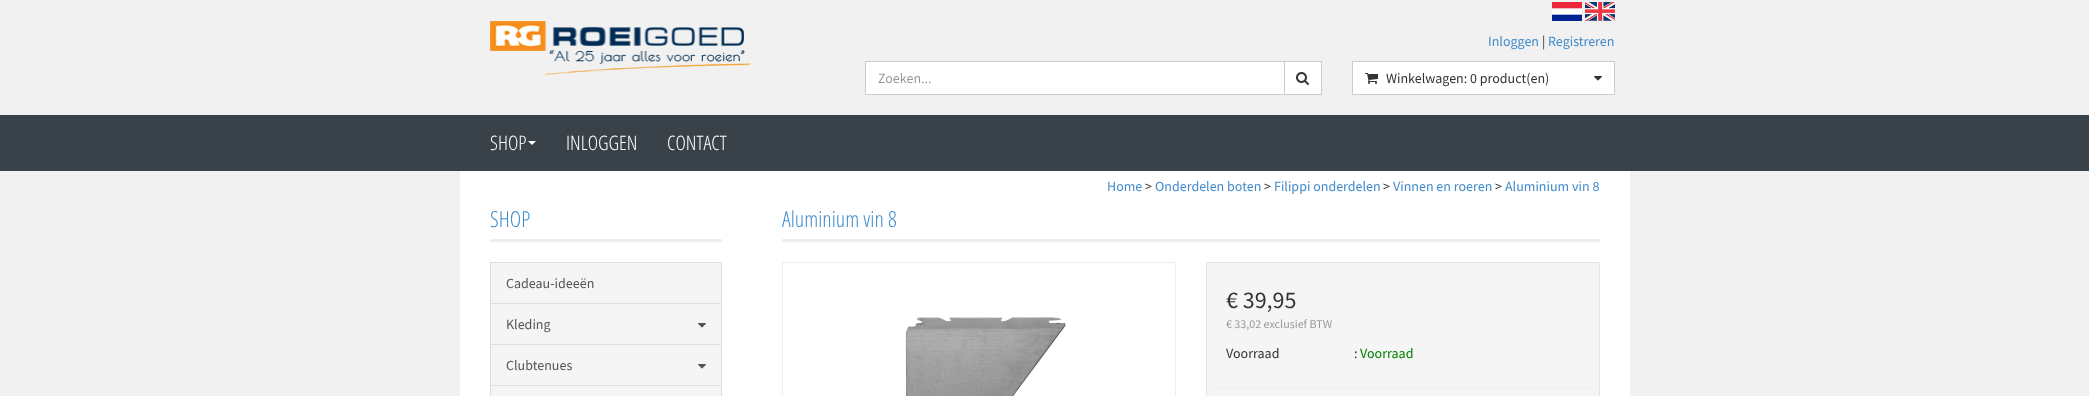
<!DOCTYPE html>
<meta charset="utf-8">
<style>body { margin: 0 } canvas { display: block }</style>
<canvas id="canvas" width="2089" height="396"></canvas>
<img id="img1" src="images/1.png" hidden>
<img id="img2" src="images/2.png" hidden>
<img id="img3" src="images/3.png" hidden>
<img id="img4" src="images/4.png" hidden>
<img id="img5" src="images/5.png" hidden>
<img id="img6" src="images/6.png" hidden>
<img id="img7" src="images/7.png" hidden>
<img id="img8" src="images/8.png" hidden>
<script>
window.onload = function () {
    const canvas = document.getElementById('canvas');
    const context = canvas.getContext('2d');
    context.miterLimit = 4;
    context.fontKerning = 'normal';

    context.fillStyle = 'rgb(241, 241, 241)';
    context.fillRect(0, 0, 2089, 396);
    context.drawImage(document.getElementById('img1'), 1552, 2, 30, 19);
    context.drawImage(document.getElementById('img2'), 1585, 2, 30, 19);
    context.drawImage(document.getElementById('img3'), 490, 21, 262, 54);
    context.fillStyle = 'rgb(204, 204, 204)';
    context.fillRect(1284, 61, 38, 1);
    context.fillRect(1321, 61, 1, 34);
    context.fillRect(1284, 94, 38, 1);
    context.fillStyle = 'rgb(255, 255, 255)';
    context.beginPath();
    context.rect(865.5, 61.5, 419, 33);
    context.fill();
    context.strokeStyle = 'rgb(204, 204, 204)';
    context.stroke();
    context.fillRect(1285, 62, 36, 32);
    context.drawImage(document.getElementById('img4'), 1296, 72, 13, 13);
    context.beginPath();
    context.rect(1352.5, 61.5, 262, 33);
    context.fill();
    context.stroke();
    context.drawImage(document.getElementById('img5'), 1365, 73, 13, 11);
    context.drawImage(document.getElementById('img6'), 1594, 76, 8, 5);
    context.fillStyle = 'rgb(56, 66, 72)';
    context.fillRect(0, 115, 2089, 56);
    context.fillStyle = 'rgb(255, 255, 255)';
    context.beginPath();
    context.moveTo(528, 141);
    context.lineTo(536, 141);
    context.lineTo(532, 145);
    context.closePath();
    context.fill();
    context.fillRect(460, 171, 1170, 225);
    context.fillStyle = 'rgb(238, 238, 238)';
    context.fillRect(490, 239, 232, 3);
    context.fillStyle = 'rgb(245, 245, 245)';
    context.beginPath();
    context.rect(490.5, 262.5, 231, 41);
    context.fill();
    context.strokeStyle = 'rgb(221, 221, 221)';
    context.stroke();
    context.beginPath();
    context.rect(490.5, 303.5, 231, 41);
    context.fill();
    context.stroke();
    context.drawImage(document.getElementById('img7'), 698, 323, 8, 5);
    context.beginPath();
    context.rect(490.5, 344.5, 231, 41);
    context.fill();
    context.stroke();
    context.drawImage(document.getElementById('img7'), 698, 364, 8, 5);
    context.beginPath();
    context.rect(490.5, 385.5, 231, 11);
    context.fill();
    context.stroke();
    context.fillStyle = 'rgb(238, 238, 238)';
    context.fillRect(782, 239, 818, 3);
    context.strokeStyle = 'rgb(238, 238, 238)';
    context.strokeRect(782.5, 262.5, 393, 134);
    context.drawImage(document.getElementById('img8'), 905, 317, 161, 79);
    context.fillStyle = 'rgb(245, 245, 245)';
    context.beginPath();
    context.rect(1206.5, 262.5, 393, 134);
    context.fill();
    context.strokeStyle = 'rgb(227, 227, 227)';
    context.stroke();
    context.fillStyle = 'rgb(238, 238, 238)';
    context.fillRect(1211, 388, 384, 1);
    context.font = '14px Source Sans Pro';
    context.fillStyle = 'rgb(66, 139, 202)';
    context.fillText('Inloggen', 1488, 46);
    context.fillStyle = 'rgb(51, 51, 51)';
    context.fillText('|', 1542, 46);
    context.fillStyle = 'rgb(66, 139, 202)';
    context.fillText('Registreren', 1548, 46);
    context.fillStyle = 'rgb(153, 153, 153)';
    context.fillText('Zoeken...', 878, 83);
    context.fillStyle = 'rgb(51, 51, 51)';
    context.fillText('Winkelwagen: 0 product(en)', 1386, 83);
    context.font = '300 20px Open Sans Condensed';
    context.fillStyle = 'rgb(255, 255, 255)';
    context.fillText('SHOP', 490, 150);
    context.fillText('INLOGGEN', 566, 150);
    context.fillText('CONTACT', 667, 150);
    context.font = '14px Source Sans Pro';
    context.fillStyle = 'rgb(66, 139, 202)';
    context.fillText('Home', 1107, 191);
    context.fillStyle = 'rgb(51, 51, 51)';
    context.fillText('>', 1145, 191);
    context.fillStyle = 'rgb(66, 139, 202)';
    context.fillText('Onderdelen boten', 1155, 191);
    context.fillStyle = 'rgb(51, 51, 51)';
    context.fillText('>', 1264, 191);
    context.fillStyle = 'rgb(66, 139, 202)';
    context.fillText('Filippi onderdelen', 1274, 191);
    context.fillStyle = 'rgb(51, 51, 51)';
    context.fillText('>', 1383, 191);
    context.fillStyle = 'rgb(66, 139, 202)';
    context.fillText('Vinnen en roeren', 1393, 191);
    context.fillStyle = 'rgb(51, 51, 51)';
    context.fillText('>', 1495, 191);
    context.fillStyle = 'rgb(66, 139, 202)';
    context.fillText('Aluminium vin 8', 1505, 191);
    context.font = '300 22px Open Sans Condensed';
    context.fillText('SHOP', 490, 227);
    context.font = '14px Source Sans Pro';
    context.fillStyle = 'rgb(85, 85, 85)';
    context.fillText('Cadeau-ideeën', 506, 288);
    context.fillText('Kleding', 506, 329);
    context.fillText('Clubtenues', 506, 370);
    context.font = '300 22px Open Sans Condensed';
    context.fillStyle = 'rgb(66, 139, 202)';
    context.fillText('Aluminium vin 8', 782, 227);
    context.font = '24px Source Sans Pro';
    context.fillStyle = 'rgb(51, 51, 51)';
    context.fillText('€ 39,95', 1226, 308);
    context.font = '12px Source Sans Pro';
    context.fillStyle = 'rgb(153, 153, 153)';
    context.fillText('€ 33,02 exclusief BTW', 1226, 328);
    context.font = '14px Source Sans Pro';
    context.fillStyle = 'rgb(51, 51, 51)';
    context.fillText('Voorraad', 1226, 358);
    context.fillText(':', 1354, 358);
    context.fillStyle = 'rgb(0, 128, 0)';
    context.fillText('Voorraad', 1360, 358);
};
</script>
